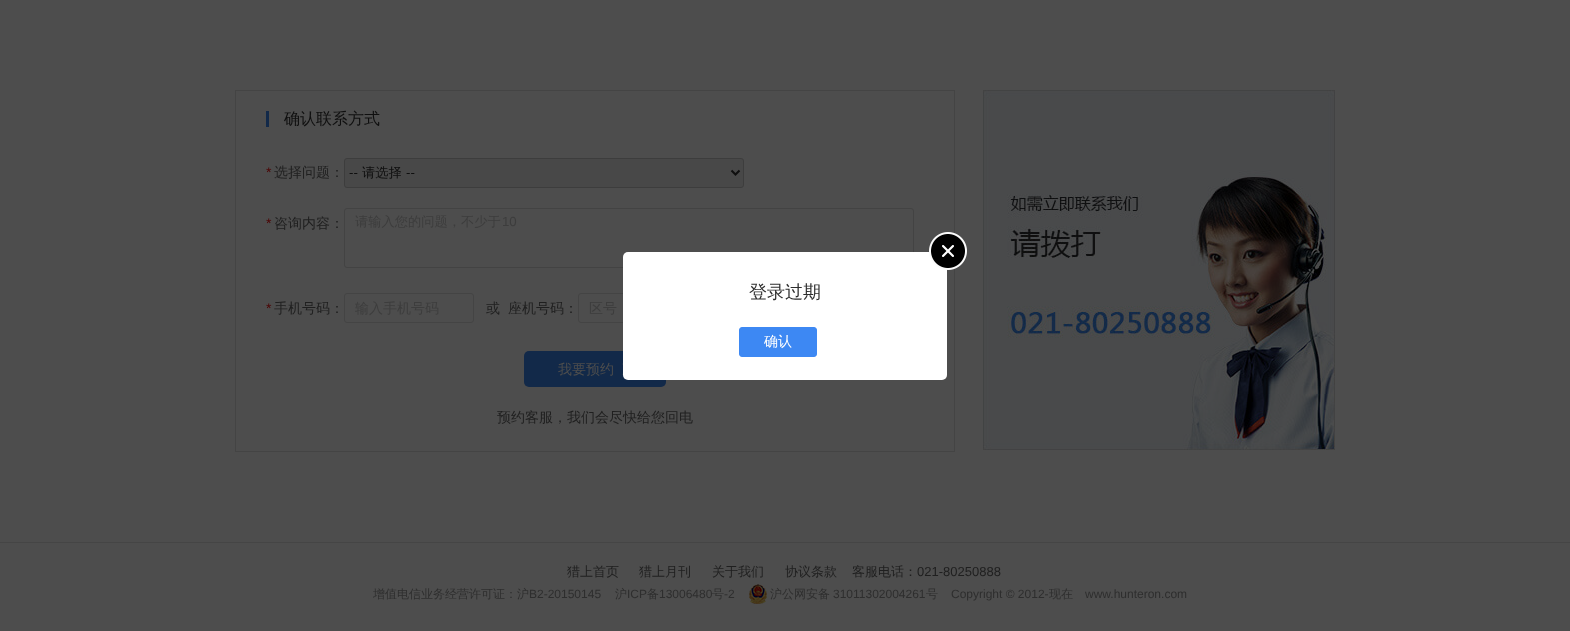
<!DOCTYPE html>
<meta charset="utf-8">
<style>body { margin: 0 } canvas { display: block }</style>
<canvas id="canvas" width="1570" height="631"></canvas>
<img id="img1" src="images/1.png" hidden>
<img id="img2" src="images/2.png" hidden>
<img id="img3" src="images/3.png" hidden>
<img id="img4" src="images/4.png" hidden>
<script>
window.onload = function () {
    const canvas = document.getElementById('canvas');
    const context = canvas.getContext('2d');
    context.miterLimit = 4;
    context.fontKerning = 'normal';

    context.fillStyle = 'rgb(77, 77, 77)';
    context.fillRect(0, 0, 1570, 631);
    context.strokeStyle = 'rgb(68, 68, 68)';
    context.strokeRect(235.5, 90.5, 719, 361);
    context.fillStyle = 'rgb(18, 41, 73)';
    context.fillRect(266, 111, 3, 16);
    context.fillStyle = 'rgb(72, 72, 72)';
    context.beginPath();
    context.roundRect(344.5, 158.5, 399, 29, 2.5);
    context.fill();
    context.strokeStyle = 'rgb(61, 61, 61)';
    context.stroke();
    context.beginPath();
    context.moveTo(731.5, 170.5);
    context.lineTo(735.5, 174.5);
    context.lineTo(739.5, 170.5);
    context.strokeStyle = 'rgb(15, 15, 15)';
    context.lineWidth = 2;
    context.stroke();
    context.beginPath();
    context.roundRect(344.5, 208.5, 569, 59, 2.5);
    context.strokeStyle = 'rgb(67, 67, 67)';
    context.lineWidth = 1;
    context.stroke();
    context.beginPath();
    context.roundRect(344.5, 293.5, 129, 29, 2.5);
    context.strokeStyle = 'rgb(68, 68, 68)';
    context.stroke();
    context.beginPath();
    context.roundRect(578.5, 293.5, 71, 29, 2.5);
    context.stroke();
    context.fillStyle = 'rgb(18, 41, 73)';
    context.beginPath();
    context.roundRect(524, 351, 142, 36, 5);
    context.fill();
    context.drawImage(document.getElementById('img1'), 622, 363, 1, 12);
    context.drawImage(document.getElementById('img2'), 983, 90, 352, 360);
    context.fillStyle = 'rgb(69, 69, 69)';
    context.fillRect(0, 542, 1570, 1);
    context.drawImage(document.getElementById('img3'), 749, 584, 18, 20);
    context.fillStyle = 'rgb(255, 255, 255)';
    context.beginPath();
    context.roundRect(623, 252, 324, 128, 5);
    context.fill();
    context.drawImage(document.getElementById('img4'), 929, 232, 38, 38);
    context.fillStyle = 'rgb(61, 136, 243)';
    context.beginPath();
    context.roundRect(739.5, 327.5, 77, 29, 2.5);
    context.fill();
    context.strokeStyle = 'rgb(61, 136, 243)';
    context.stroke();
    context.font = '500 16px WenQuanYi Zen Hei';
    context.fillStyle = 'rgb(15, 15, 15)';
    context.fillText('确认联系方式', 284, 124);
    context.font = '14px Liberation Sans';
    context.fillStyle = 'rgb(77, 0, 0)';
    context.fillText('*', 266, 177);
    context.font = '500 14px WenQuanYi Zen Hei';
    context.fillStyle = 'rgb(31, 31, 31)';
    context.fillText('选择问题：', 274, 177);
    context.font = '13.25px Liberation Sans';
    context.fillStyle = 'rgb(15, 15, 15)';
    context.fillText('--', 349, 177);
    context.font = '500 13.25px WenQuanYi Zen Hei';
    context.fillText('请选择', 362, 177);
    context.font = '13.25px Liberation Sans';
    context.fillText('--', 406, 177);
    context.font = '14px Liberation Sans';
    context.fillStyle = 'rgb(77, 0, 0)';
    context.fillText('*', 266, 228);
    context.font = '500 14px WenQuanYi Zen Hei';
    context.fillStyle = 'rgb(31, 31, 31)';
    context.fillText('咨询内容：', 274, 228);
    context.font = '500 13.25px WenQuanYi Zen Hei';
    context.fillStyle = 'rgb(61, 61, 61)';
    context.fillText('请输入您的问题，不少于', 355, 226);
    context.font = '13.25px Liberation Sans';
    context.fillText('10', 502, 226);
    context.font = '14px Liberation Sans';
    context.fillStyle = 'rgb(77, 0, 0)';
    context.fillText('*', 266, 313);
    context.font = '500 14px WenQuanYi Zen Hei';
    context.fillStyle = 'rgb(31, 31, 31)';
    context.fillText('手机号码：', 274, 313);
    context.fillStyle = 'rgb(61, 61, 61)';
    context.fillText('输入手机号码', 355, 313);
    context.fillStyle = 'rgb(31, 31, 31)';
    context.fillText('或', 486, 313);
    context.fillText('座机号码：', 508, 313);
    context.fillStyle = 'rgb(61, 61, 61)';
    context.fillText('区号', 589, 313);
    context.fillStyle = 'rgb(77, 77, 77)';
    context.fillText('我要预约', 558, 374);
    context.fillStyle = 'rgb(31, 31, 31)';
    context.fillText('预约客服，我们会尽快给您回电', 497, 422);
    context.font = '500 13px WenQuanYi Zen Hei';
    context.fillText('猎上首页', 567, 576);
    context.fillText('猎上月刊', 639, 576);
    context.fillText('关于我们', 712, 576);
    context.fillText('协议条款', 785, 576);
    context.fillText('客服电话：', 852, 576);
    context.font = '13px Liberation Sans';
    context.fillText('021-80250888', 917, 576);
    context.font = '500 12px WenQuanYi Zen Hei';
    context.fillStyle = 'rgb(46, 46, 46)';
    context.fillText('增值电信业务经营许可证：沪', 373, 598);
    context.font = '12px Liberation Sans';
    context.fillText('B2-20150145', 529, 598);
    context.font = '500 12px WenQuanYi Zen Hei';
    context.fillText('沪', 615, 598);
    context.font = '12px Liberation Sans';
    context.fillText('ICP', 627, 598);
    context.font = '500 12px WenQuanYi Zen Hei';
    context.fillText('备', 647, 598);
    context.font = '12px Liberation Sans';
    context.fillText('13006480', 659, 598);
    context.font = '500 12px WenQuanYi Zen Hei';
    context.fillText('号', 712, 598);
    context.font = '12px Liberation Sans';
    context.fillText('-2', 724, 598);
    context.font = '500 12px WenQuanYi Zen Hei';
    context.fillText('沪公网安备', 770, 598);
    context.font = '12px Liberation Sans';
    context.fillText('31011302004261', 833, 598);
    context.font = '500 12px WenQuanYi Zen Hei';
    context.fillText('号', 926, 598);
    context.font = '12px Liberation Sans';
    context.fillText('Copyright © 2012-', 951, 598);
    context.font = '500 12px WenQuanYi Zen Hei';
    context.fillText('现在', 1049, 598);
    context.font = '12px Liberation Sans';
    context.fillText('www.hunteron.com', 1085, 598);
    context.font = '500 18px WenQuanYi Zen Hei';
    context.fillText('登录过期', 749, 298);
    context.font = '500 14px WenQuanYi Zen Hei';
    context.fillStyle = 'rgb(255, 255, 255)';
    context.fillText('确认', 764, 346);
};
</script>
